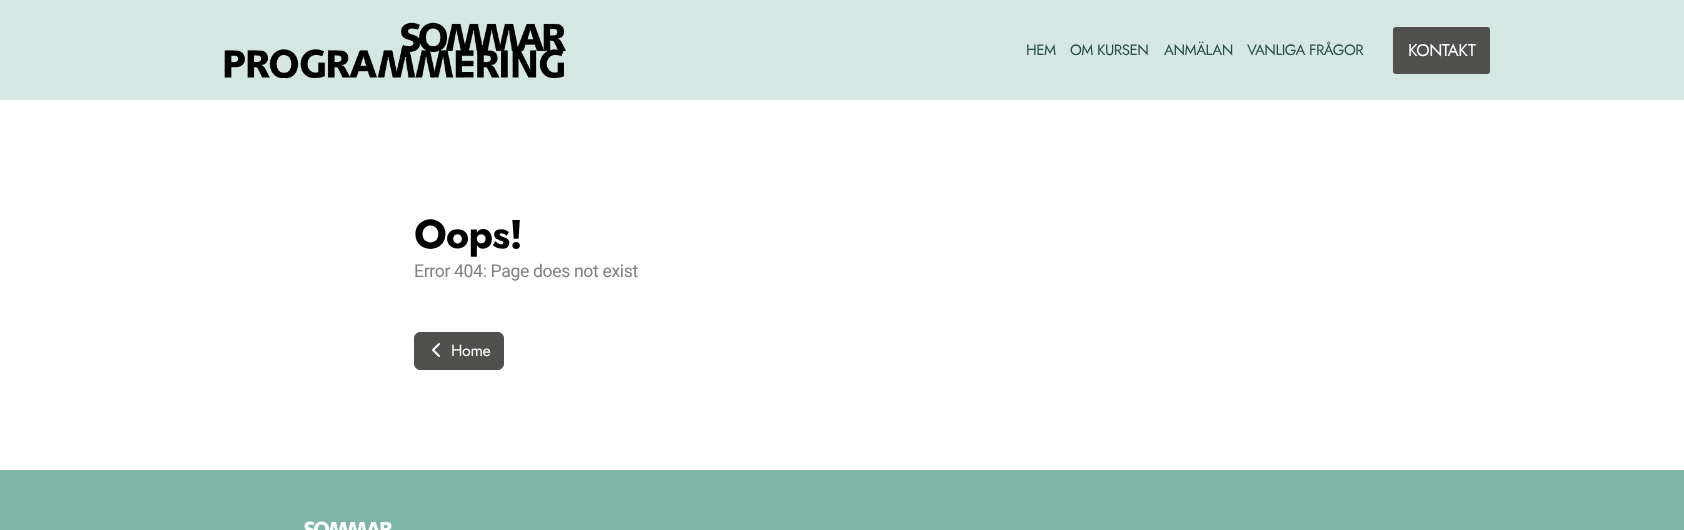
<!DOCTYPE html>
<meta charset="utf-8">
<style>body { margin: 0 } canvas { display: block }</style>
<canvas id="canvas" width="1684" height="530"></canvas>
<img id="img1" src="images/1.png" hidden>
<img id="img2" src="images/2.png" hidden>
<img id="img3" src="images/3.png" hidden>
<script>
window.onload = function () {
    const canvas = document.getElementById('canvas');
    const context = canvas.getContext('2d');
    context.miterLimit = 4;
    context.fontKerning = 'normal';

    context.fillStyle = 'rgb(255, 255, 255)';
    context.fillRect(0, 0, 1684, 530);
    context.fillStyle = 'rgb(212, 231, 226)';
    context.fillRect(0, 0, 1684, 100);
    context.drawImage(document.getElementById('img1'), 224, 22, 342, 57);
    context.fillStyle = 'rgb(80, 81, 79)';
    context.beginPath();
    context.roundRect(1393, 27, 97, 47, 3);
    context.fill();
    context.beginPath();
    context.roundRect(414.5, 332.5, 89, 37, 5.5);
    context.fill();
    context.strokeStyle = 'rgb(80, 81, 79)';
    context.stroke();
    context.drawImage(document.getElementById('img2'), 432, 343, 8, 14);
    context.fillStyle = 'rgb(125, 182, 167)';
    context.fillRect(0, 470, 1684, 60);
    context.drawImage(document.getElementById('img3'), 304, 521, 88, 9);
    context.letterSpacing = '-0.5px';
    context.font = '15px Jost';
    context.fillStyle = 'rgb(41, 79, 69)';
    context.fillText('HEM', 1026, 55);
    context.fillText('OM KURSEN', 1070, 55);
    context.fillText('ANMÄLAN', 1164, 55);
    context.fillText('VANLIGA FRÅGOR', 1247, 55);
    context.font = '17px Jost';
    context.fillStyle = 'rgb(255, 255, 255)';
    context.fillText('KONTAKT', 1408, 56);
    context.letterSpacing = '-1px';
    context.font = 'bold 40px Jost';
    context.fillStyle = 'rgb(0, 0, 0)';
    context.fillText('Oops!', 414, 248);
    context.letterSpacing = '-0.35px';
    context.font = '17.6px Roboto';
    context.fillStyle = 'rgb(128, 128, 128)';
    context.fillText('Error 404: Page does not exist', 414, 277);
    context.font = '16px Jost';
    context.fillStyle = 'rgb(255, 255, 255)';
    context.fillText('Home', 451, 356);
};
</script>
